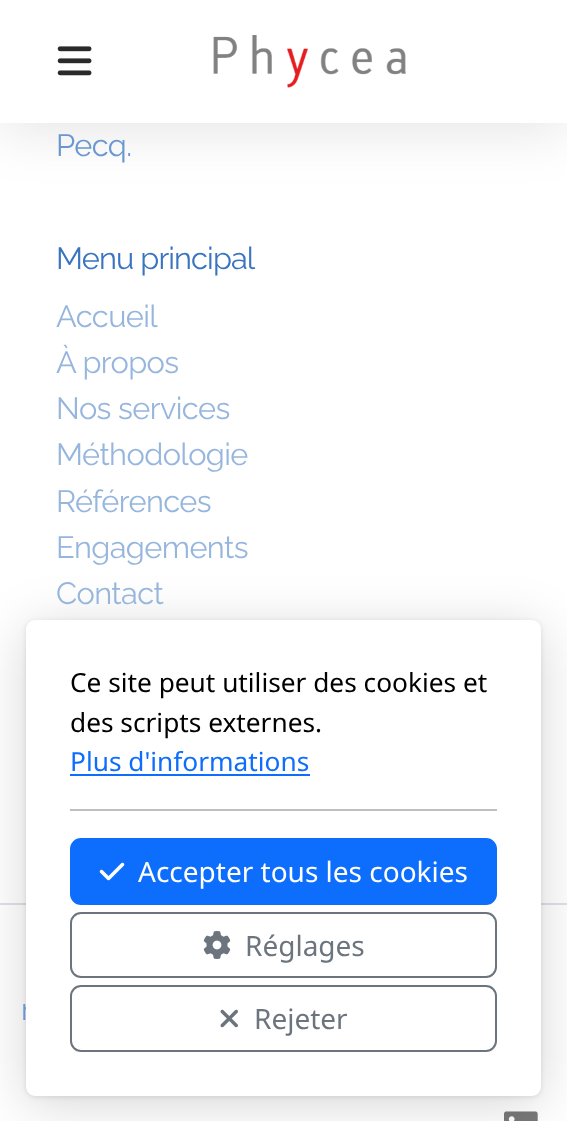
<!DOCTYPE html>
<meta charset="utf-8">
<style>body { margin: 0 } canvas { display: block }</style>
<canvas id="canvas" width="567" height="1121"></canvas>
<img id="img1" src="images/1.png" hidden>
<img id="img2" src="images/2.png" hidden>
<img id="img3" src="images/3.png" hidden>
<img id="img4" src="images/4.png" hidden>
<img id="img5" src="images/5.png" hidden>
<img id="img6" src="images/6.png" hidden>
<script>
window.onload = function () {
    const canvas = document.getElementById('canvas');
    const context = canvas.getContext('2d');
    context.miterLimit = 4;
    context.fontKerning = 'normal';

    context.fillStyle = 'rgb(255, 255, 255)';
    context.fillRect(0, 0, 567, 1121);
    context.fillStyle = 'rgba(0, 0, 0, 0.09)';
    context.filter = 'blur(25.5px)';
    context.beginPath();
    context.rect(0, 12, 567, 123);
    context.fill();
    context.filter = 'none';
    context.fillStyle = 'rgb(255, 255, 255)';
    context.fillRect(0, 0, 567, 123);
    context.drawImage(document.getElementById('img1'), 57, 46, 35, 30);
    context.drawImage(document.getElementById('img2'), 213, 35, 193, 53);
    context.fillStyle = 'rgb(222, 226, 230)';
    context.fillRect(0, 903, 567, 2);
    context.drawImage(document.getElementById('img3'), 504, 1111, 34, 10);
    context.fillStyle = 'rgba(0, 0, 0, 0.16)';
    context.filter = 'blur(26px)';
    context.beginPath();
    context.roundRect(26, 628, 515, 476, 9);
    context.fill();
    context.filter = 'none';
    context.fillStyle = 'rgba(0, 0, 0, 0.1)';
    context.filter = 'blur(2.5px)';
    context.beginPath();
    context.roundRect(26, 621, 515, 476, 9);
    context.fill();
    context.filter = 'none';
    context.letterSpacing = '-0.6px';
    context.font = '100 30.75px Raleway';
    context.fillStyle = 'rgb(107, 151, 208)';
    context.fillText('Pecq.', 56, 156);
    context.letterSpacing = '-0.9px';
    context.fillStyle = 'rgb(57, 116, 192)';
    context.fillText('Menu principal', 56, 269);
    context.letterSpacing = '-0.6px';
    context.fillStyle = 'rgb(151, 182, 222)';
    context.fillText('Accueil', 56, 327);
    context.fillText('À propos', 56, 373);
    context.fillText('Nos services', 56, 419);
    context.fillText('Méthodologie', 56, 465);
    context.fillText('Références', 56, 512);
    context.fillText('Engagements', 56, 558);
    context.fillText('Contact', 56, 604);
    context.fillStyle = 'rgb(107, 151, 208)';
    context.fillText('r', 21, 1020);
    context.fillStyle = 'rgb(255, 255, 255)';
    context.beginPath();
    context.roundRect(26, 620, 515, 476, 9);
    context.fill();
    context.letterSpacing = '0px';
    context.font = '26.25px Noto Sans';
    context.fillStyle = 'rgb(0, 0, 0)';
    context.fillText('Ce site peut utiliser des cookies et', 70, 692);
    context.fillText('des scripts externes.', 70, 732);
    context.fillStyle = 'rgb(13, 110, 253)';
    context.fillText('Plus d\'informations', 70, 771);
    context.fillRect(70, 774, 240, 2);
    context.fillStyle = 'rgb(191, 191, 191)';
    context.fillRect(70, 809, 427, 2);
    context.fillStyle = 'rgb(13, 110, 253)';
    context.beginPath();
    context.roundRect(71, 839, 425, 65, 10);
    context.fill();
    context.strokeStyle = 'rgb(13, 110, 253)';
    context.lineWidth = 2;
    context.stroke();
    context.drawImage(document.getElementById('img4'), 99, 862, 26, 19);
    context.font = '28px Noto Sans';
    context.fillStyle = 'rgb(255, 255, 255)';
    context.fillText('Accepter tous les cookies', 138, 882);
    context.beginPath();
    context.roundRect(71, 913, 425, 64, 10);
    context.strokeStyle = 'rgb(108, 117, 125)';
    context.stroke();
    context.drawImage(document.getElementById('img5'), 203, 931, 28, 28);
    context.fillStyle = 'rgb(108, 117, 125)';
    context.fillText('Réglages', 245, 956);
    context.beginPath();
    context.roundRect(71, 986, 425, 65, 10);
    context.stroke();
    context.drawImage(document.getElementById('img6'), 220, 1009, 18, 19);
    context.fillText('Rejeter', 254, 1029);
};
</script>
